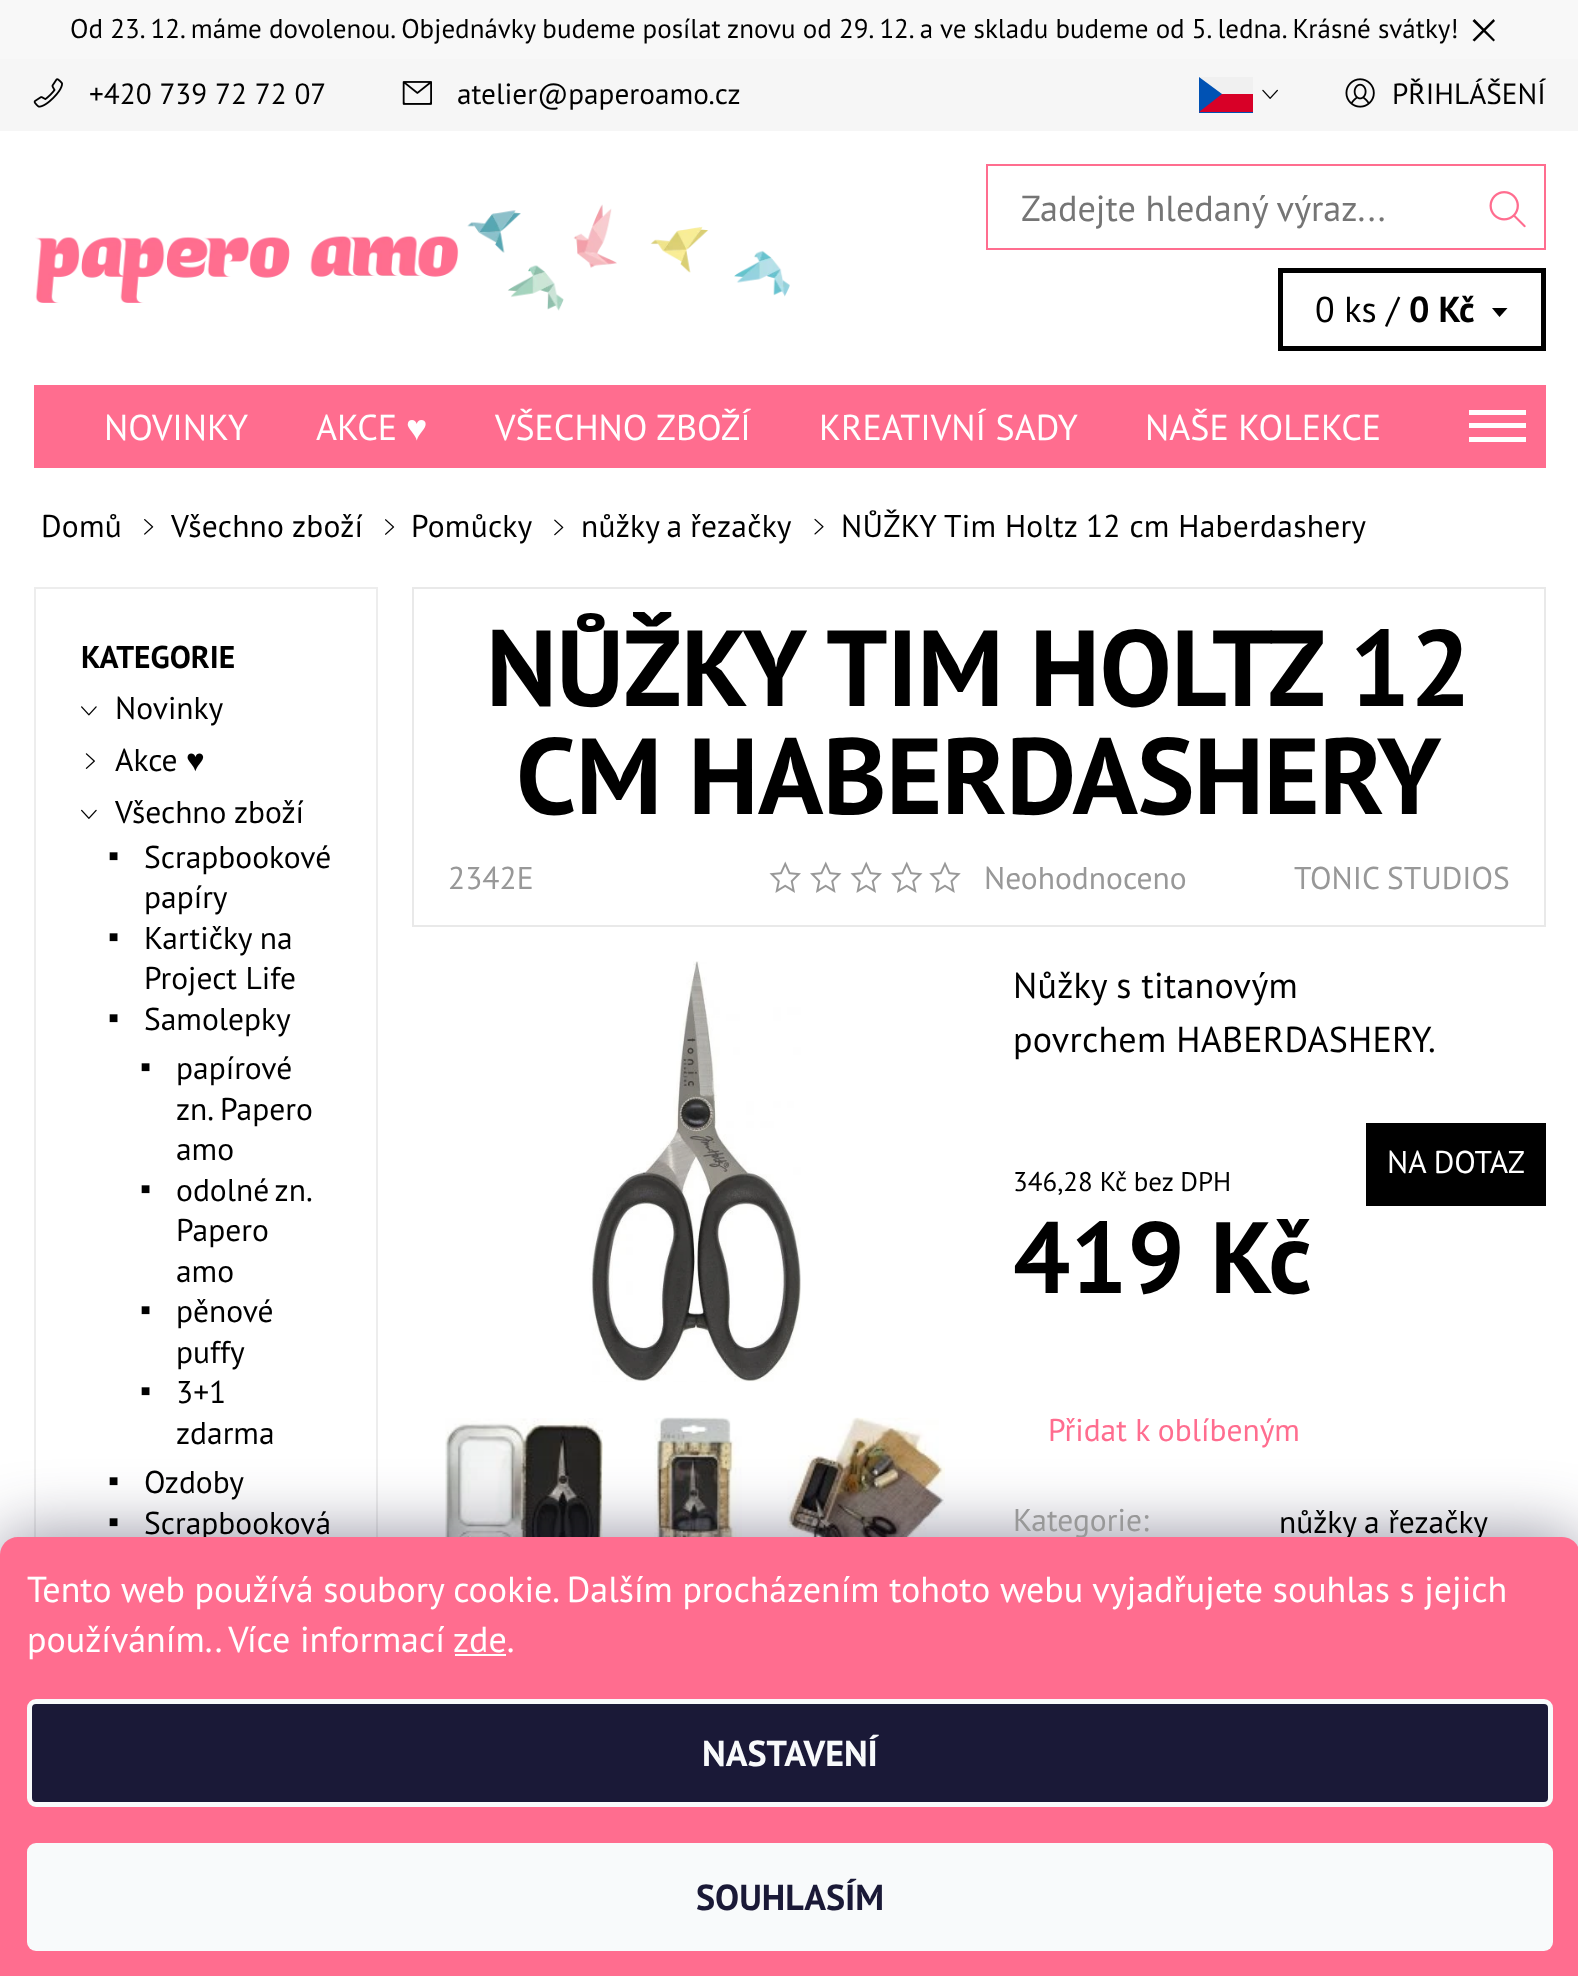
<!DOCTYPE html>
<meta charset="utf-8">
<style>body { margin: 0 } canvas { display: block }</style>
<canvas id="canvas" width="1578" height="1976"></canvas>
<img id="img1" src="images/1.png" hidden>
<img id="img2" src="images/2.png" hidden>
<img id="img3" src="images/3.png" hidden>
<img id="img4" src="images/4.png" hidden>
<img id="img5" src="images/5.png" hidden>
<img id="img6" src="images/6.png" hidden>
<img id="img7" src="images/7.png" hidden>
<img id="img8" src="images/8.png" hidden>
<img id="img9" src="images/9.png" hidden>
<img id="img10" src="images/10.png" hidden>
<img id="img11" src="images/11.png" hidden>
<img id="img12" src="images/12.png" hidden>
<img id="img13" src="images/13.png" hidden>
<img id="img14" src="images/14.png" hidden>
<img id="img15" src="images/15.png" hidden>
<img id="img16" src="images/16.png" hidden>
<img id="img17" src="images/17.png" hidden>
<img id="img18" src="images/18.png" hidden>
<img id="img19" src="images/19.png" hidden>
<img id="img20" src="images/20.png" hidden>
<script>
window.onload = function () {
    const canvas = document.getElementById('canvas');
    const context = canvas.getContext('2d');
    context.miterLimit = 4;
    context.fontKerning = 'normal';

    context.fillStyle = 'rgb(255, 255, 255)';
    context.fillRect(0, 0, 1578, 1976);
    context.fillStyle = 'rgb(248, 248, 248)';
    context.fillRect(0, 0, 1578, 59);
    context.fillStyle = 'rgb(0, 0, 0)';
    context.beginPath();
    context.moveTo(1474.5, 19);
    context.lineTo(1495, 40);
    context.lineTo(1493.5, 41.5);
    context.lineTo(1472.5, 21);
    context.closePath();
    context.fill();
    context.beginPath();
    context.moveTo(1493.5, 19);
    context.lineTo(1495, 21);
    context.lineTo(1474.5, 41.5);
    context.lineTo(1472.5, 40);
    context.closePath();
    context.fill();
    context.fillStyle = 'rgb(246, 246, 246)';
    context.fillRect(0, 59, 1578, 72);
    context.drawImage(document.getElementById('img1'), 33, 78, 30, 30);
    context.drawImage(document.getElementById('img2'), 402, 81, 30, 24);
    context.fillStyle = 'rgb(0, 82, 180)';
    context.fillRect(1199, 77, 54, 36);
    context.fillStyle = 'rgb(216, 0, 39)';
    context.beginPath();
    context.moveTo(1253, 94);
    context.lineTo(1253, 112);
    context.lineTo(1199, 112);
    context.lineTo(1222, 94);
    context.closePath();
    context.fill();
    context.fillStyle = 'rgb(240, 240, 240)';
    context.beginPath();
    context.moveTo(1253, 77);
    context.lineTo(1253, 94);
    context.lineTo(1222, 94);
    context.lineTo(1199, 77);
    context.closePath();
    context.fill();
    context.drawImage(document.getElementById('img3'), 1262, 89, 16, 10);
    context.drawImage(document.getElementById('img4'), 1345, 78, 30, 30);
    context.drawImage(document.getElementById('img5'), 35, 204, 755, 107);
    context.fillStyle = 'rgb(255, 109, 143)';
    context.fillRect(986, 164, 560, 2);
    context.fillRect(986, 248, 486, 2);
    context.fillRect(986, 164, 2, 86);
    context.fillRect(1544, 164, 2, 86);
    context.fillRect(1472, 248, 74, 2);
    context.drawImage(document.getElementById('img6'), 1489, 191, 37, 37);
    context.strokeStyle = 'rgb(0, 0, 0)';
    context.lineWidth = 5;
    context.strokeRect(1280.5, 270.5, 263, 78);
    context.fillStyle = 'rgb(0, 0, 0)';
    context.beginPath();
    context.moveTo(1499.5, 308);
    context.lineTo(1507.5, 308);
    context.lineTo(1499.5, 317);
    context.lineTo(1492, 308);
    context.closePath();
    context.fill();
    context.fillStyle = 'rgb(255, 109, 143)';
    context.fillRect(34, 385, 1512, 83);
    context.fillStyle = 'rgb(255, 255, 255)';
    context.fillRect(1469, 410, 57, 5);
    context.fillRect(1469, 423, 57, 5);
    context.fillRect(1469, 437, 57, 5);
    context.drawImage(document.getElementById('img7'), 144, 519, 10, 16);
    context.drawImage(document.getElementById('img8'), 385, 519, 10, 16);
    context.drawImage(document.getElementById('img9'), 554, 519, 10, 17);
    context.drawImage(document.getElementById('img10'), 814, 518, 10, 17);
    context.strokeStyle = 'rgb(237, 237, 237)';
    context.lineWidth = 2;
    context.strokeRect(35, 588, 342, 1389);
    context.drawImage(document.getElementById('img11'), 81, 706, 16, 10);
    context.drawImage(document.getElementById('img12'), 85, 753, 10, 16);
    context.drawImage(document.getElementById('img13'), 81, 809, 16, 10);
    context.strokeStyle = 'rgb(233, 233, 233)';
    context.strokeRect(413, 588, 1132, 338);
    context.drawImage(document.getElementById('img14'), 769, 861, 32, 32);
    context.drawImage(document.getElementById('img15'), 810, 861, 32, 32);
    context.drawImage(document.getElementById('img14'), 850, 861, 32, 32);
    context.drawImage(document.getElementById('img15'), 891, 861, 32, 32);
    context.drawImage(document.getElementById('img16'), 929, 861, 32, 32);
    context.drawImage(document.getElementById('img17'), 589, 961, 212, 421);
    context.drawImage(document.getElementById('img18'), 445, 1418, 158, 119);
    context.drawImage(document.getElementById('img19'), 654, 1417, 88, 120);
    context.drawImage(document.getElementById('img20'), 787, 1417, 158, 120);
    context.fillStyle = 'rgb(0, 0, 0)';
    context.fillRect(1366, 1123, 180, 83);
    context.fillStyle = 'rgba(27, 25, 57, 0.5)';
    context.filter = 'blur(34px)';
    context.beginPath();
    context.roundRect(0, 1537, 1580, 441, 18);
    context.fill();
    context.filter = 'none';
    context.font = '27px PT Sans';
    context.fillStyle = 'rgb(0, 0, 0)';
    context.fillText('Od 23. 12. máme dovolenou. Objednávky budeme posílat znovu od 29. 12. a ve skladu budeme od 5. ledna. Krásné svátky!', 70, 38);
    context.font = '29.25px PT Sans';
    context.fillText('+420 739 72 72 07', 89, 104);
    context.fillText('atelier@paperoamo.cz', 457, 104);
    context.fillText('PŘIHLÁŠENÍ', 1392, 104);
    context.font = '36.25px PT Sans';
    context.fillStyle = 'rgb(117, 117, 117)';
    context.fillText('Zadejte hledaný výraz...', 1021, 221);
    context.font = '36px PT Sans';
    context.fillStyle = 'rgb(0, 0, 0)';
    context.fillText('0 ks /', 1315, 322);
    context.font = 'bold 36px PT Sans';
    context.fillText('0 Kč', 1409, 322);
    context.font = '36px PT Sans';
    context.fillStyle = 'rgb(255, 255, 255)';
    context.fillText('NOVINKY', 104, 440);
    context.fillText('AKCE', 316, 440);
    context.font = '36px Liberation Sans';
    context.fillText('♥', 406, 440);
    context.font = '36px PT Sans';
    context.fillText('VŠECHNO ZBOŽÍ', 495, 440);
    context.fillText('KREATIVNÍ SADY', 819, 440);
    context.fillText('NAŠE KOLEKCE', 1145, 440);
    context.letterSpacing = '0.25px';
    context.font = '31.5px PT Sans';
    context.fillStyle = 'rgb(0, 0, 0)';
    context.fillText('Domů', 41, 537);
    context.fillText('Všechno zboží', 171, 537);
    context.fillText('Pomůcky', 411, 537);
    context.wordSpacing = '-1px';
    context.fillText('nůžky a řezačky', 581, 537);
    context.wordSpacing = '0px';
    context.fillText('NŮŽKY Tim Holtz 12 cm Haberdashery', 841, 537);
    context.letterSpacing = '0px';
    context.font = 'bold 31.5px PT Sans';
    context.fillText('KATEGORIE', 81, 668);
    context.font = '31.5px PT Sans';
    context.fillText('Novinky', 115, 719);
    context.fillText('Akce', 115, 771);
    context.font = '31.5px Liberation Sans';
    context.fillText('♥', 186, 771);
    context.font = '31.5px PT Sans';
    context.fillText('Všechno zboží', 115, 823);
    context.font = '31.5px Liberation Serif';
    context.fillText('▪', 108, 866);
    context.font = '31.5px PT Sans';
    context.fillText('Scrapbookové', 144, 868);
    context.fillText('papíry', 144, 908);
    context.font = '31.5px Liberation Serif';
    context.fillText('▪', 108, 947);
    context.font = '31.5px PT Sans';
    context.fillText('Kartičky na', 144, 949);
    context.fillText('Project Life', 144, 989);
    context.font = '31.5px Liberation Serif';
    context.fillText('▪', 108, 1028);
    context.font = '31.5px PT Sans';
    context.fillText('Samolepky', 144, 1030);
    context.font = '31.5px Liberation Serif';
    context.fillText('▪', 140, 1077);
    context.font = '31.5px PT Sans';
    context.fillText('papírové', 176, 1079);
    context.fillText('zn. Papero', 176, 1120);
    context.fillText('amo', 176, 1160);
    context.font = '31.5px Liberation Serif';
    context.fillText('▪', 140, 1199);
    context.wordSpacing = '-2px';
    context.font = '31.5px PT Sans';
    context.fillText('odolné zn.', 176, 1201);
    context.wordSpacing = '0px';
    context.fillText('Papero', 176, 1241);
    context.fillText('amo', 176, 1282);
    context.font = '31.5px Liberation Serif';
    context.fillText('▪', 140, 1320);
    context.font = '31.5px PT Sans';
    context.fillText('pěnové', 176, 1322);
    context.fillText('puffy', 176, 1363);
    context.font = '31.5px Liberation Serif';
    context.fillText('▪', 140, 1401);
    context.font = '31.5px PT Sans';
    context.fillText('3+1', 176, 1403);
    context.fillText('zdarma', 176, 1444);
    context.font = '31.5px Liberation Serif';
    context.fillText('▪', 108, 1491);
    context.font = '31.5px PT Sans';
    context.fillText('Ozdoby', 144, 1493);
    context.font = '31.5px Liberation Serif';
    context.fillText('▪', 108, 1532);
    context.font = '31.5px PT Sans';
    context.fillText('Scrapbooková', 144, 1534);
    context.letterSpacing = '-0.6px';
    context.font = 'bold 108px PT Sans';
    context.fillText('NŮŽKY TIM HOLTZ 12', 486, 706);
    context.fillText('CM HABERDASHERY', 516, 814);
    context.letterSpacing = '0px';
    context.font = '31.5px PT Sans';
    context.fillStyle = 'rgb(152, 152, 152)';
    context.fillText('2342E', 448, 889);
    context.fillText('Neohodnoceno', 984, 889);
    context.fillText('TONIC STUDIOS', 1294, 889);
    context.letterSpacing = '0.25px';
    context.font = '36px PT Sans';
    context.fillStyle = 'rgb(0, 0, 0)';
    context.fillText('Nůžky s titanovým', 1013, 998);
    context.fillText('povrchem HABERDASHERY.', 1013, 1052);
    context.letterSpacing = '0px';
    context.font = '31.5px PT Sans';
    context.fillStyle = 'rgb(255, 255, 255)';
    context.fillText('NA DOTAZ', 1387, 1173);
    context.font = '27px PT Sans';
    context.fillStyle = 'rgb(0, 0, 0)';
    context.fillText('346,28 Kč bez DPH', 1013, 1191);
    context.font = 'bold 101px PT Sans';
    context.fillText('419 Kč', 1013, 1293);
    context.font = '31.5px PT Sans';
    context.fillStyle = 'rgb(255, 109, 143)';
    context.fillText('Přidat k oblíbeným', 1048, 1441);
    context.fillStyle = 'rgb(152, 152, 152)';
    context.fillText('Kategorie:', 1013, 1531);
    context.fillStyle = 'rgb(0, 0, 0)';
    context.fillText('nůžky a řezačky', 1279, 1533);
    context.fillStyle = 'rgb(255, 109, 143)';
    context.beginPath();
    context.moveTo(18, 1537);
    context.lineTo(1562, 1537);
    context.bezierCurveTo(1572, 1537, 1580, 1545, 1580, 1555);
    context.lineTo(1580, 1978);
    context.lineTo(0, 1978);
    context.lineTo(0, 1555);
    context.bezierCurveTo(0, 1545, 8, 1537, 18, 1537);
    context.closePath();
    context.fill();
    context.font = '36px PT Sans';
    context.fillStyle = 'rgb(255, 255, 255)';
    context.fillText('Tento web používá soubory cookie. Dalším procházením tohoto webu vyjadřujete souhlas s jejich', 27, 1602);
    context.fillText('používáním.. Více informací', 27, 1652);
    context.fillText('zde.', 453, 1652);
    context.fillRect(455, 1654, 51, 2);
    context.fillStyle = 'rgb(26, 25, 55)';
    context.beginPath();
    context.roundRect(29.5, 1701.5, 1521, 103, 6.5);
    context.fill();
    context.strokeStyle = 'rgb(248, 250, 251)';
    context.lineWidth = 5;
    context.stroke();
    context.font = 'bold 36px PT Sans';
    context.fillStyle = 'rgb(248, 250, 251)';
    context.fillText('NASTAVENÍ', 702, 1766);
    context.beginPath();
    context.roundRect(27, 1843, 1526, 108, 9);
    context.fill();
    context.fillStyle = 'rgb(26, 25, 55)';
    context.fillText('SOUHLASÍM', 696, 1910);
};
</script>
